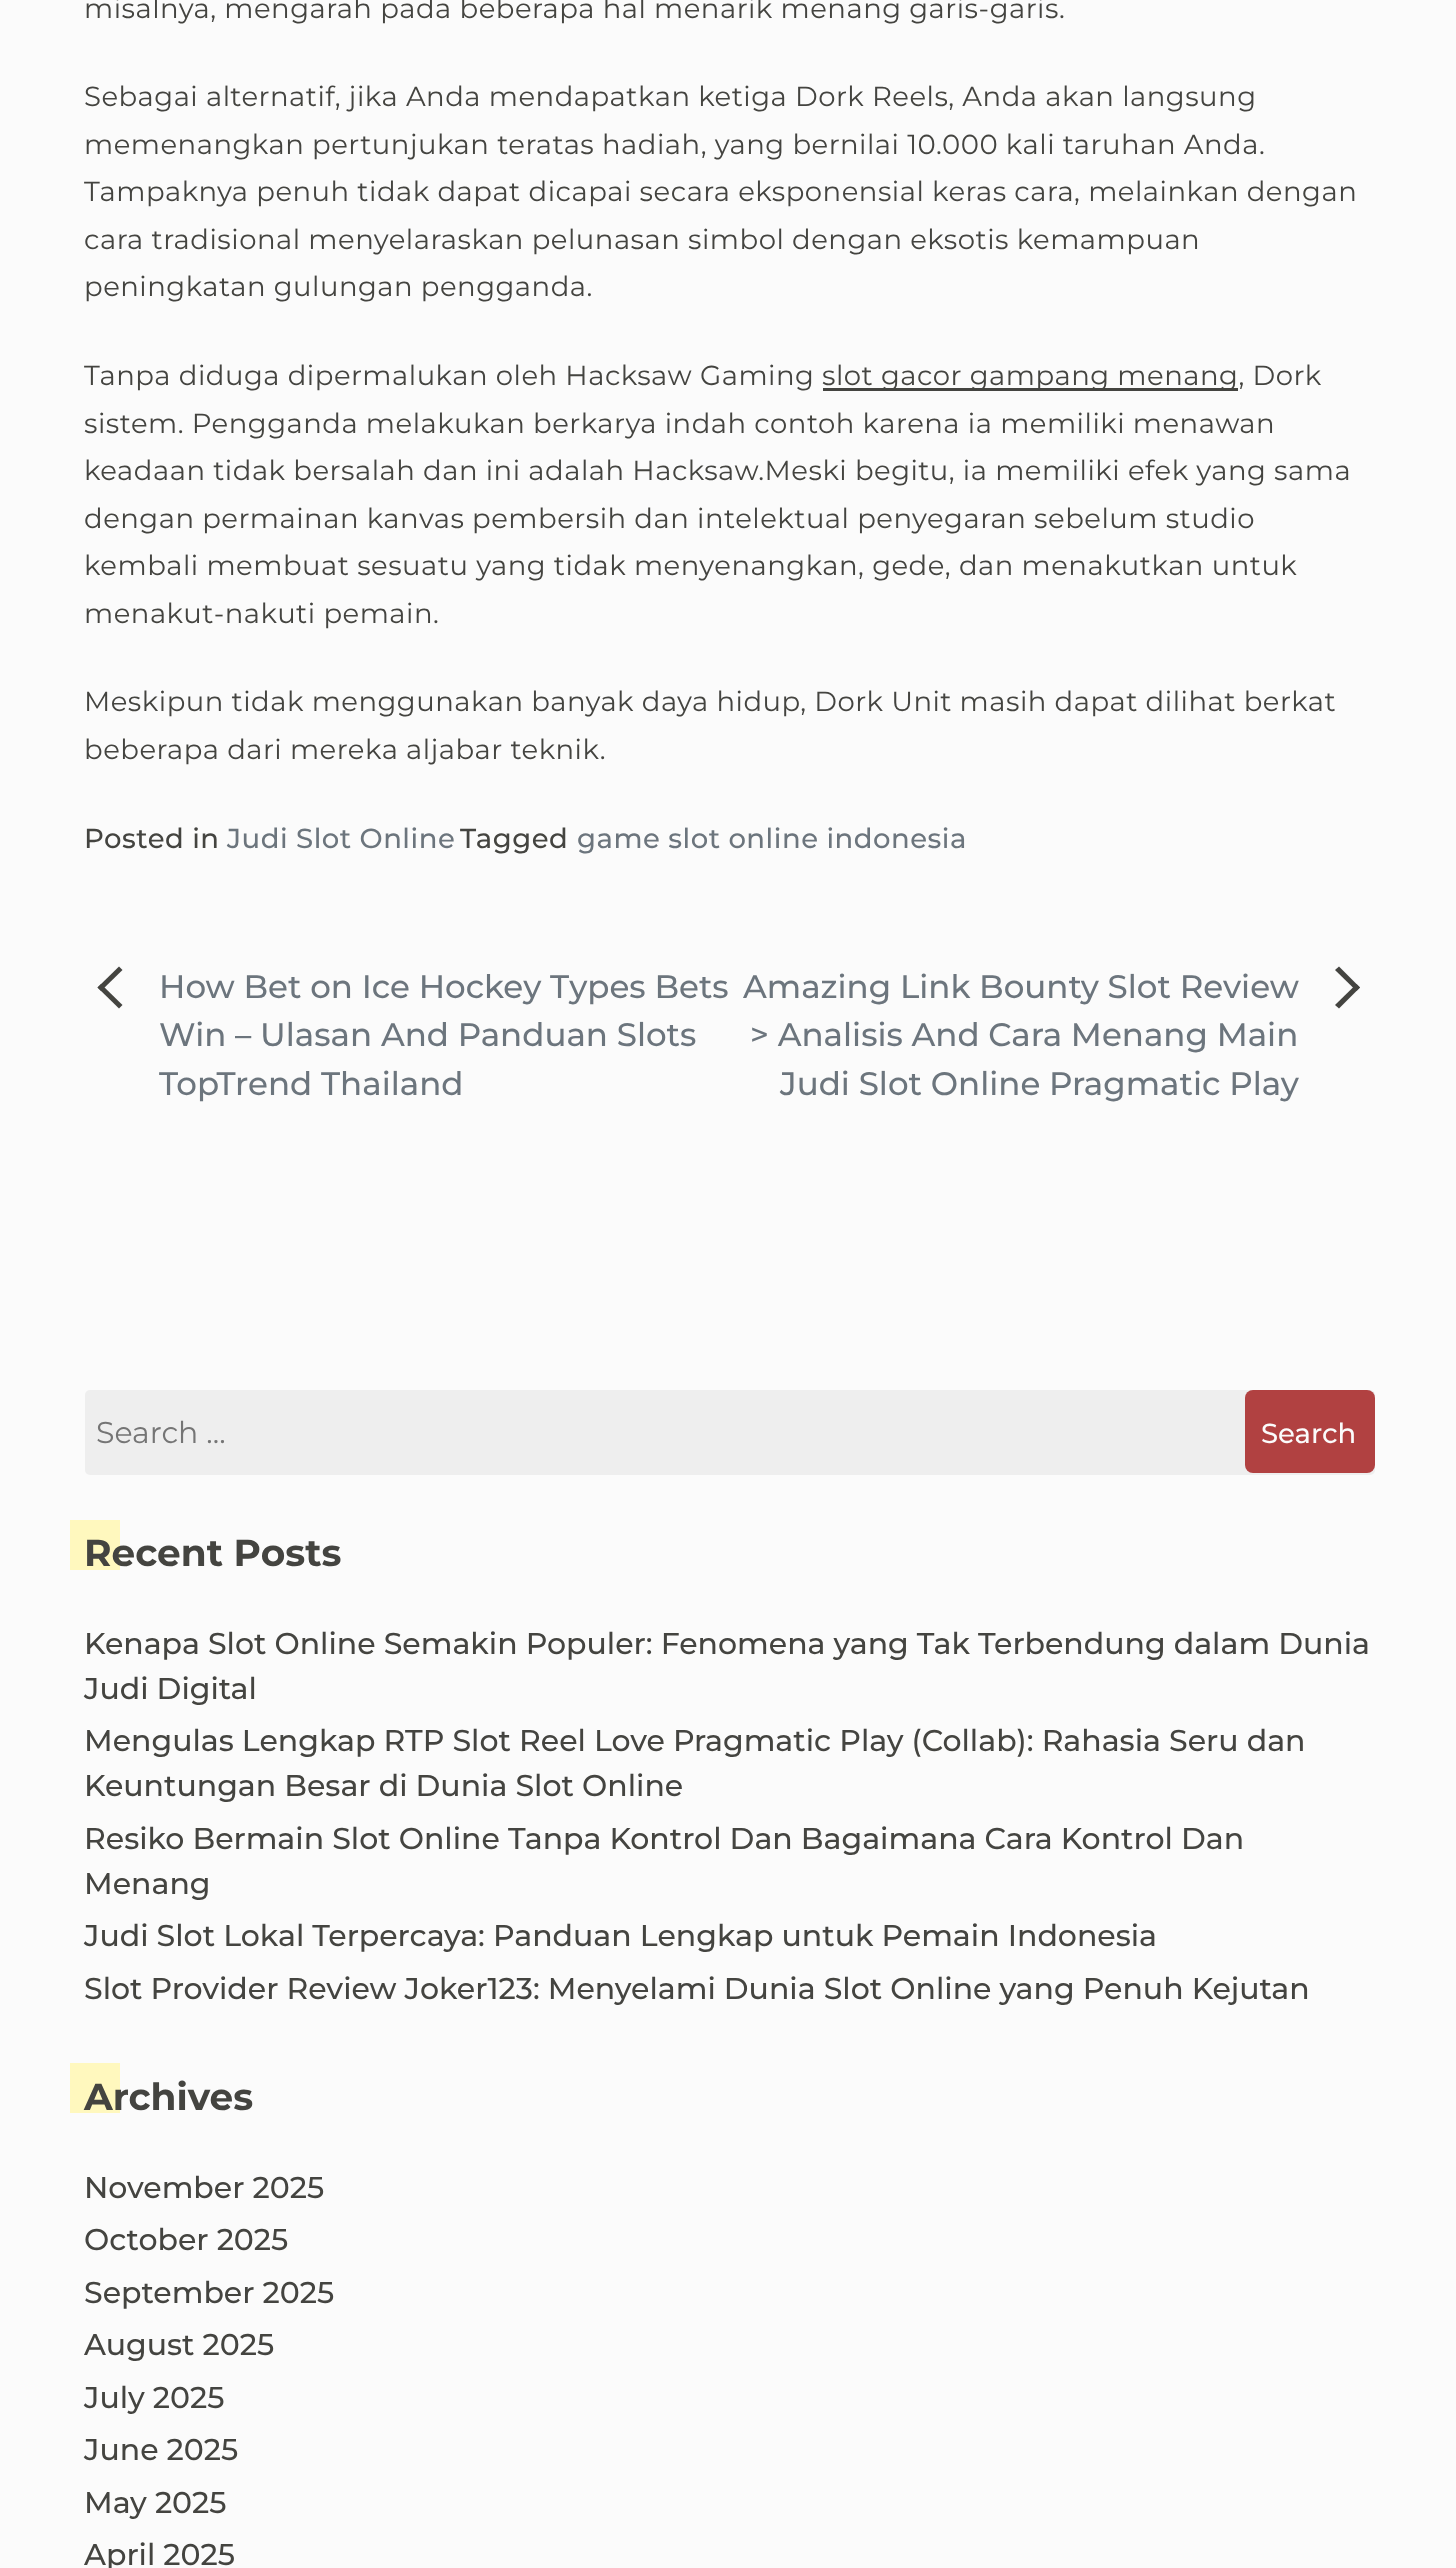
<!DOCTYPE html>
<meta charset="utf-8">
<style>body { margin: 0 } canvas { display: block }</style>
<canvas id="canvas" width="1456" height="2568"></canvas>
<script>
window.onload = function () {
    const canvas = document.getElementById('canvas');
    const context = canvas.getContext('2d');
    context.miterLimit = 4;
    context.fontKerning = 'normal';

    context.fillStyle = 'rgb(251, 251, 251)';
    context.fillRect(0, 0, 1456, 2568);
    context.fillStyle = 'rgb(68, 68, 64)';
    context.fillRect(823, 388, 415, 3);
    context.beginPath();
    context.moveTo(122.5, 1005);
    context.lineTo(119, 1008.5);
    context.lineTo(97.5, 987.5);
    context.lineTo(101, 984);
    context.closePath();
    context.fill();
    context.beginPath();
    context.moveTo(122.5, 970);
    context.lineTo(101, 991);
    context.lineTo(97.5, 987.5);
    context.lineTo(119, 966.5);
    context.closePath();
    context.fill();
    context.beginPath();
    context.moveTo(1335, 970);
    context.lineTo(1339, 966.5);
    context.lineTo(1360, 987.5);
    context.lineTo(1356.5, 991);
    context.closePath();
    context.fill();
    context.beginPath();
    context.moveTo(1335, 1005);
    context.lineTo(1356.5, 984);
    context.lineTo(1360, 987.5);
    context.lineTo(1339, 1008.5);
    context.closePath();
    context.fill();
    context.fillStyle = 'rgb(238, 238, 238)';
    context.beginPath();
    context.roundRect(85, 1390, 1290, 85, 5);
    context.fill();
    context.fillStyle = 'rgb(177, 65, 65)';
    context.beginPath();
    context.roundRect(1245, 1390, 130, 83, 8);
    context.fill();
    context.fillStyle = 'rgb(255, 248, 190)';
    context.fillRect(70, 1520, 50, 50);
    context.fillRect(70, 2063, 50, 50);
    context.letterSpacing = '0.5px';
    context.font = '27.5px Montserrat';
    context.fillStyle = 'rgb(68, 68, 64)';
    context.fillText('misalnya, mengarah pada beberapa hal menarik menang garis-garis.', 84, 18);
    context.fillText('Sebagai alternatif, jika Anda mendapatkan ketiga Dork Reels, Anda akan langsung', 84, 106);
    context.fillText('memenangkan pertunjukan teratas hadiah, yang bernilai 10.000 kali taruhan Anda.', 84, 154);
    context.fillText('Tampaknya penuh tidak dapat dicapai secara eksponensial keras cara, melainkan dengan', 84, 201);
    context.fillText('cara tradisional menyelaraskan pelunasan simbol dengan eksotis kemampuan', 84, 249);
    context.fillText('peningkatan gulungan pengganda.', 84, 296);
    context.fillText('Tanpa diduga dipermalukan oleh Hacksaw Gaming', 84, 385);
    context.fillText('slot gacor gampang menang, Dork', 822, 385);
    context.fillText('sistem. Pengganda melakukan berkarya indah contoh karena ia memiliki menawan', 84, 433);
    context.fillText('keadaan tidak bersalah dan ini adalah Hacksaw.Meski begitu, ia memiliki efek yang sama', 84, 480);
    context.fillText('dengan permainan kanvas pembersih dan intelektual penyegaran sebelum studio', 84, 528);
    context.fillText('kembali membuat sesuatu yang tidak menyenangkan, gede, dan menakutkan untuk', 84, 575);
    context.fillText('menakut-nakuti pemain.', 84, 623);
    context.fillText('Meskipun tidak menggunakan banyak daya hidup, Dork Unit masih dapat dilihat berkat', 84, 711);
    context.fillText('beberapa dari mereka aljabar teknik.', 84, 759);
    context.font = '500 27.5px Montserrat';
    context.fillText('Posted in', 84, 848);
    context.fillStyle = 'rgb(108, 117, 125)';
    context.fillText('Judi Slot Online', 227, 848);
    context.fillStyle = 'rgb(68, 68, 64)';
    context.fillText('Tagged', 460, 848);
    context.fillStyle = 'rgb(108, 117, 125)';
    context.fillText('game slot online indonesia', 577, 848);
    context.letterSpacing = '0px';
    context.font = '500 32.5px Montserrat';
    context.fillText('How Bet on Ice Hockey Types Bets', 159, 998);
    context.fillText('Win – Ulasan And Panduan Slots', 159, 1046);
    context.fillText('TopTrend Thailand', 159, 1095);
    context.fillText('Amazing Link Bounty Slot Review', 743, 998);
    context.fillText('> Analisis And Cara Menang Main', 750, 1046);
    context.fillText('Judi Slot Online Pragmatic Play', 780, 1095);
    context.font = '30px Montserrat';
    context.fillStyle = 'rgb(117, 117, 117)';
    context.fillText('Search …', 96, 1443);
    context.font = '500 27.5px Montserrat';
    context.fillStyle = 'rgb(251, 251, 251)';
    context.fillText('Search', 1261, 1443);
    context.font = 'bold 37.5px Montserrat';
    context.fillStyle = 'rgb(68, 68, 64)';
    context.fillText('Recent Posts', 84, 1566);
    context.font = '500 30px Montserrat';
    context.fillText('Kenapa Slot Online Semakin Populer: Fenomena yang Tak Terbendung dalam Dunia', 84, 1654);
    context.fillText('Judi Digital', 84, 1699);
    context.fillText('Mengulas Lengkap RTP Slot Reel Love Pragmatic Play (Collab): Rahasia Seru dan', 84, 1751);
    context.fillText('Keuntungan Besar di Dunia Slot Online', 84, 1796);
    context.fillText('Resiko Bermain Slot Online Tanpa Kontrol Dan Bagaimana Cara Kontrol Dan', 84, 1849);
    context.fillText('Menang', 84, 1894);
    context.fillText('Judi Slot Lokal Terpercaya: Panduan Lengkap untuk Pemain Indonesia', 84, 1946);
    context.fillText('Slot Provider Review Joker123: Menyelami Dunia Slot Online yang Penuh Kejutan', 84, 1999);
    context.font = 'bold 37.5px Montserrat';
    context.fillText('Archives', 84, 2110);
    context.font = '500 30px Montserrat';
    context.fillText('November 2025', 84, 2198);
    context.fillText('October 2025', 84, 2250);
    context.fillText('September 2025', 84, 2303);
    context.fillText('August 2025', 84, 2355);
    context.fillText('July 2025', 84, 2408);
    context.fillText('June 2025', 84, 2460);
    context.fillText('May 2025', 84, 2513);
    context.fillText('April 2025', 84, 2565);
};
</script>
